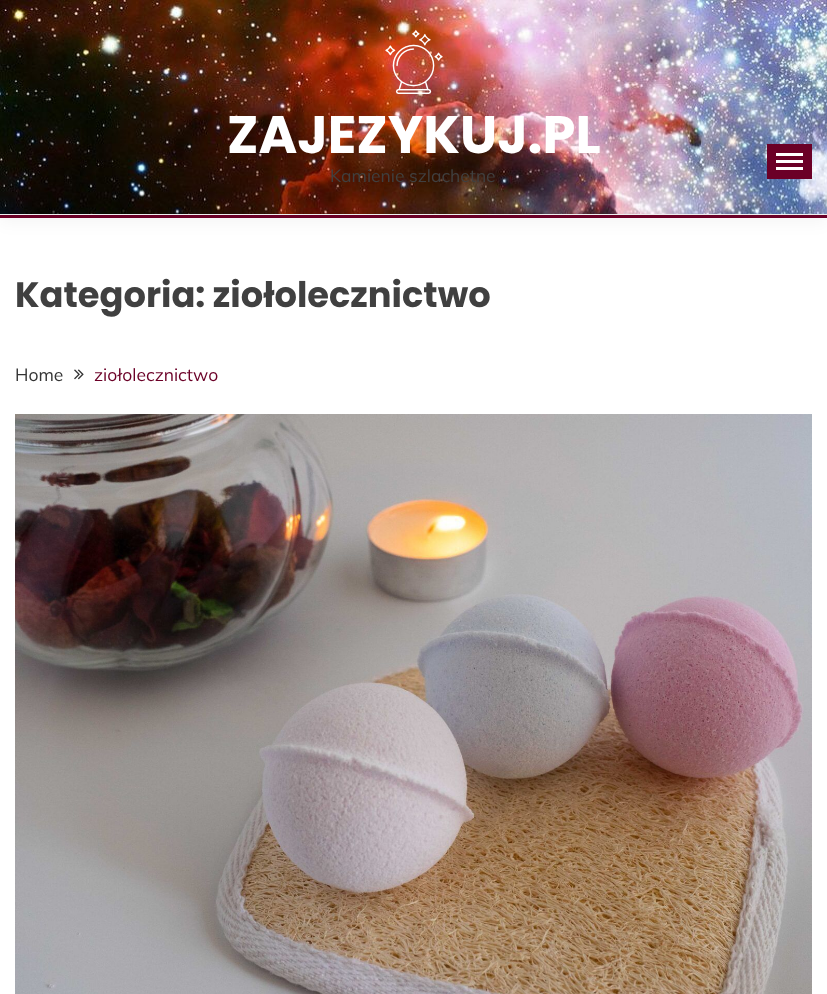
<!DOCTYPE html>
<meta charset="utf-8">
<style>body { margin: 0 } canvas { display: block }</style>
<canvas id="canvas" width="827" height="994"></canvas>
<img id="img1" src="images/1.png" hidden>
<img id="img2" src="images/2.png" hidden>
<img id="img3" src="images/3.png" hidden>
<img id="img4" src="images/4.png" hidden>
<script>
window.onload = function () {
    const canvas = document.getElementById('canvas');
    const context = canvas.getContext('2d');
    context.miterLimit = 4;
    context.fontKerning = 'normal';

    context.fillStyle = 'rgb(255, 255, 255)';
    context.fillRect(0, 0, 827, 994);
    context.fillStyle = 'rgba(0, 0, 0, 0.04)';
    context.filter = 'blur(7.5px)';
    context.beginPath();
    context.rect(0, 5, 827, 218);
    context.fill();
    context.filter = 'none';
    context.drawImage(document.getElementById('img1'), 0, 0, 827, 214);
    context.fillStyle = 'rgb(238, 238, 238)';
    context.fillRect(0, 214, 827, 1);
    context.drawImage(document.getElementById('img2'), 385, 30, 58, 64);
    context.fillStyle = 'rgb(107, 0, 39)';
    context.fillRect(767, 144, 45, 35);
    context.fillStyle = 'rgb(255, 255, 255)';
    context.fillRect(776, 153, 27, 3);
    context.fillRect(776, 160, 27, 3);
    context.fillRect(776, 167, 27, 3);
    context.fillStyle = 'rgb(107, 0, 39)';
    context.fillRect(0, 215, 827, 3);
    context.drawImage(document.getElementById('img3'), 74, 369, 10, 11);
    context.drawImage(document.getElementById('img4'), 15, 414, 797, 580);
    context.font = 'bold 52.75px Poppins';
    context.fillStyle = 'rgb(255, 255, 255)';
    context.fillText('ZAJEZYKUJ.PL', 227, 153);
    context.font = '17.5px Muli';
    context.fillStyle = 'rgb(64, 64, 64)';
    context.fillText('Kamienie szlachetne', 330, 182);
    context.font = 'bold 35.25px Poppins';
    context.fillText('Kategoria: ziołolecznictwo', 15, 307);
    context.font = '17.5px Muli';
    context.fillStyle = 'rgb(51, 51, 51)';
    context.fillText('Home', 15, 381);
    context.fillStyle = 'rgb(107, 0, 39)';
    context.fillText('ziołolecznictwo', 94, 381);
};
</script>
